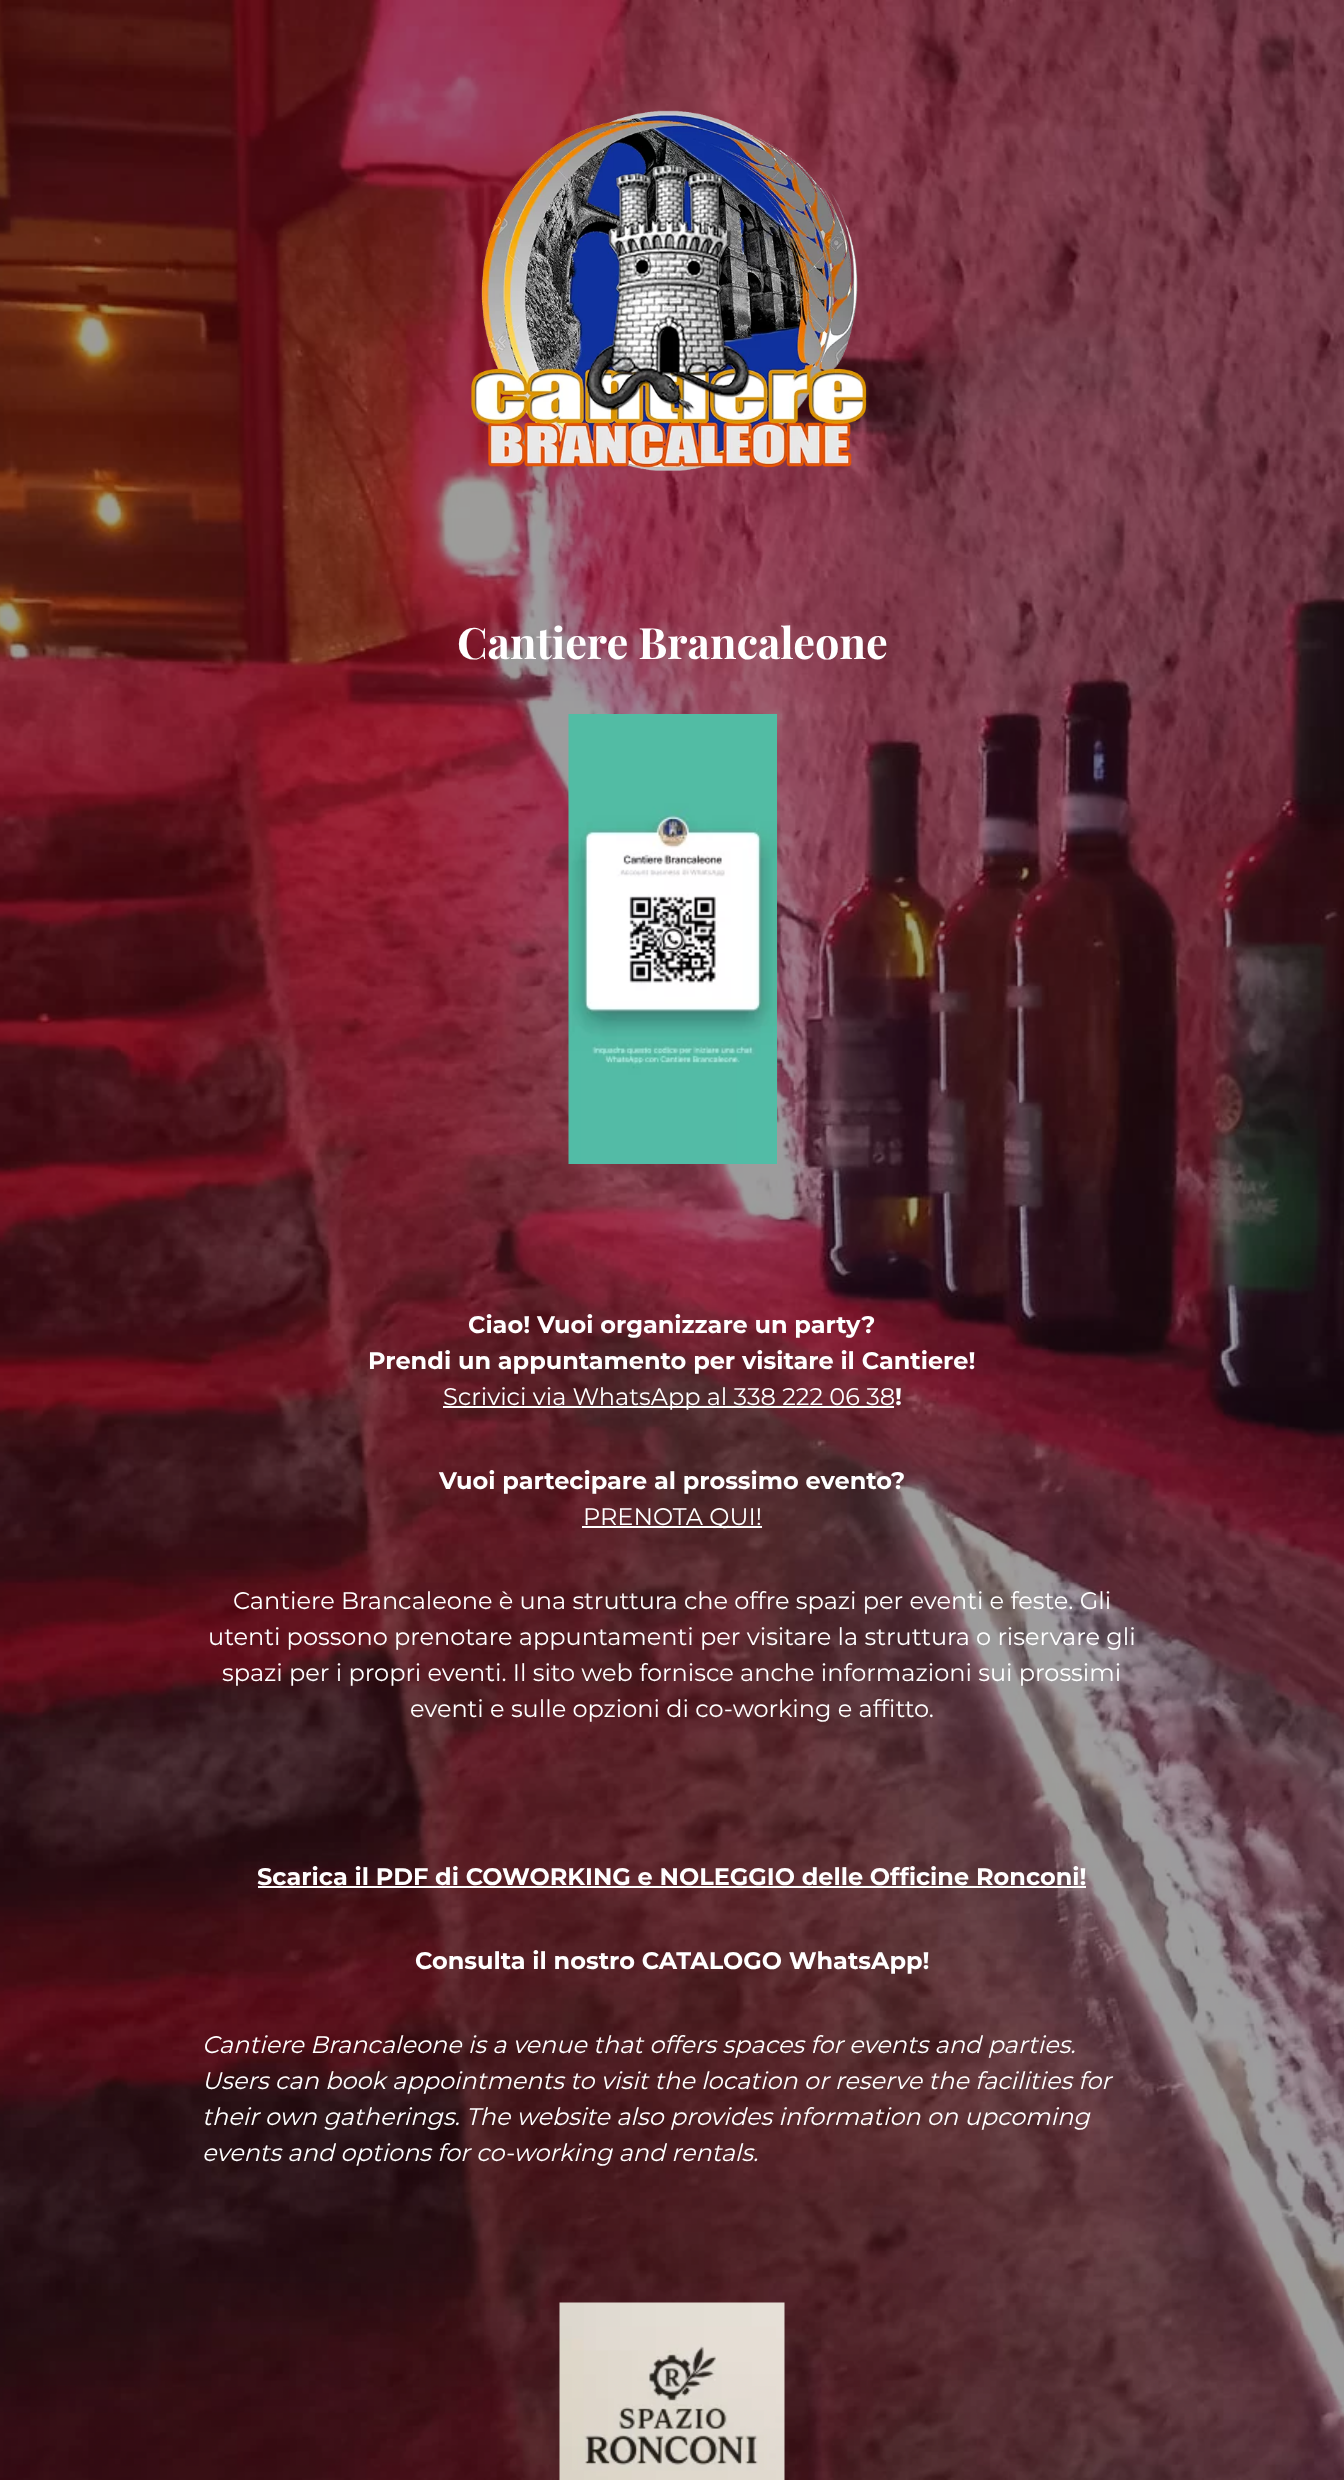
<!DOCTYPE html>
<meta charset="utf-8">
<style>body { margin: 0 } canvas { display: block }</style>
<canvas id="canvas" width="1344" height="2480"></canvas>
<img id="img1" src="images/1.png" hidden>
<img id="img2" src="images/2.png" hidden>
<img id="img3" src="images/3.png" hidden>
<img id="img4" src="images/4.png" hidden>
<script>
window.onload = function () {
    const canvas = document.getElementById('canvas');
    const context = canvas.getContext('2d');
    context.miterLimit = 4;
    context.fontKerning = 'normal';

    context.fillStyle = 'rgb(255, 255, 255)';
    context.fillRect(0, 0, 1344, 2480);
    context.drawImage(document.getElementById('img1'), 0, 0, 1344, 2480);
    context.drawImage(document.getElementById('img2'), 471, 110, 396, 361);
    context.drawImage(document.getElementById('img3'), 568, 714, 209, 450);
    context.fillRect(443, 1406, 451, 2);
    context.fillRect(582, 1526, 180, 2);
    context.fillRect(258, 1886, 828, 2);
    context.drawImage(document.getElementById('img4'), 559, 2302, 226, 178);
    context.font = 'bold 43.25px Playfair Display';
    context.fillText('Cantiere Brancaleone', 457, 659);
    context.font = 'bold 24px Montserrat';
    context.fillText('Ciao! Vuoi organizzare un party?', 468, 1333);
    context.fillText('Prendi un appuntamento per visitare il Cantiere!', 368, 1369);
    context.font = '24px Montserrat';
    context.fillText('Scrivici via WhatsApp al 338 222 06 38', 443, 1405);
    context.font = 'bold 24px Montserrat';
    context.fillText('!', 895, 1405);
    context.fillText('Vuoi partecipare al prossimo evento?', 439, 1489);
    context.font = '24px Montserrat';
    context.fillText('PRENOTA QUI!', 583, 1525);
    context.fillText('Cantiere Brancaleone è una struttura che offre spazi per eventi e feste. Gli', 233, 1609);
    context.fillText('utenti possono prenotare appuntamenti per visitare la struttura o riservare gli', 208, 1645);
    context.fillText('spazi per i propri eventi. Il sito web fornisce anche informazioni sui prossimi', 222, 1681);
    context.fillText('eventi e sulle opzioni di co-working e affitto.', 410, 1717);
    context.font = 'bold 24px Montserrat';
    context.fillText('Scarica il PDF di COWORKING e NOLEGGIO delle Officine Ronconi!', 257, 1885);
    context.fillText('Consulta il nostro CATALOGO WhatsApp!', 415, 1969);
    context.font = 'italic 24px Montserrat';
    context.fillText('Cantiere Brancaleone is a venue that offers spaces for events and parties.', 202, 2053);
    context.fillText('Users can book appointments to visit the location or reserve the facilities for', 202, 2089);
    context.fillText('their own gatherings. The website also provides information on upcoming', 202, 2125);
    context.fillText('events and options for co-working and rentals.', 202, 2161);
};
</script>
